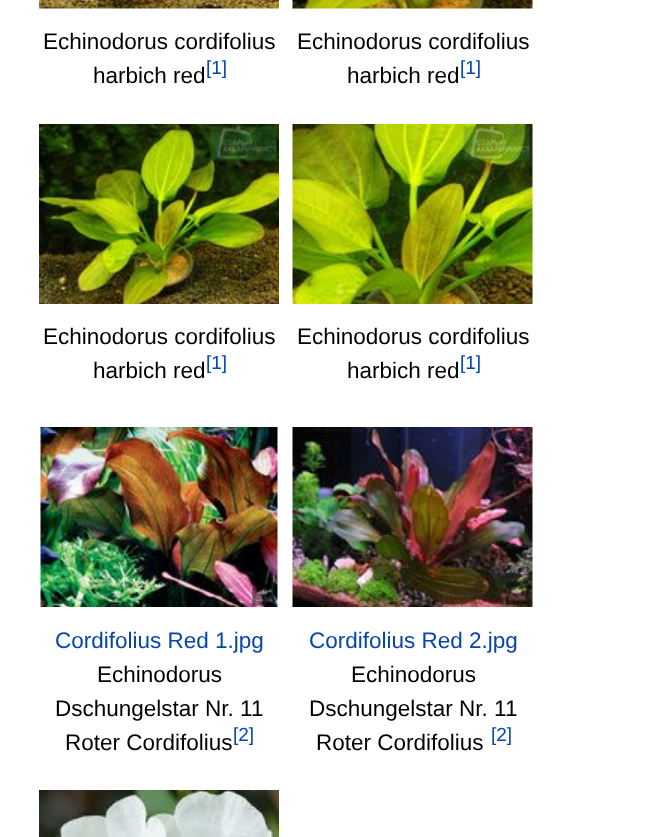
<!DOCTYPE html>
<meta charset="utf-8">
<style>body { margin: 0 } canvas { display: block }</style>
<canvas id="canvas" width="660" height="837"></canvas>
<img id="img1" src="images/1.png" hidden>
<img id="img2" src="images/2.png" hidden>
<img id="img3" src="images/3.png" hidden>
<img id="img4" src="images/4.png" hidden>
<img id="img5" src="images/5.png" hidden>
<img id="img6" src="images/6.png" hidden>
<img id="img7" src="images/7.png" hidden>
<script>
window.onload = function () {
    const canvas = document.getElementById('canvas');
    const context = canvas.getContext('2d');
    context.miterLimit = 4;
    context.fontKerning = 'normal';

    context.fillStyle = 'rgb(255, 255, 255)';
    context.fillRect(0, 0, 660, 837);
    context.drawImage(document.getElementById('img1'), 39, 0, 240, 9);
    context.drawImage(document.getElementById('img2'), 292, 0, 241, 9);
    context.drawImage(document.getElementById('img3'), 39, 124, 240, 180);
    context.drawImage(document.getElementById('img4'), 292, 124, 241, 180);
    context.drawImage(document.getElementById('img5'), 40, 427, 238, 180);
    context.drawImage(document.getElementById('img6'), 292, 427, 241, 180);
    context.drawImage(document.getElementById('img7'), 39, 790, 240, 47);
    context.font = '22.5px Liberation Sans';
    context.fillStyle = 'rgb(0, 0, 0)';
    context.fillText('Echinodorus cordifolius', 43, 49);
    context.fillText('harbich red', 93, 83);
    context.font = '19px Liberation Sans';
    context.fillStyle = 'rgb(6, 69, 173)';
    context.fillText('[1]', 206, 74);
    context.font = '22.5px Liberation Sans';
    context.fillStyle = 'rgb(0, 0, 0)';
    context.fillText('Echinodorus cordifolius', 297, 49);
    context.fillText('harbich red', 347, 83);
    context.font = '19px Liberation Sans';
    context.fillStyle = 'rgb(6, 69, 173)';
    context.fillText('[1]', 460, 74);
    context.font = '22.5px Liberation Sans';
    context.fillStyle = 'rgb(0, 0, 0)';
    context.fillText('Echinodorus cordifolius', 43, 344);
    context.fillText('harbich red', 93, 378);
    context.font = '19px Liberation Sans';
    context.fillStyle = 'rgb(6, 69, 173)';
    context.fillText('[1]', 206, 369);
    context.font = '22.5px Liberation Sans';
    context.fillStyle = 'rgb(0, 0, 0)';
    context.fillText('Echinodorus cordifolius', 297, 344);
    context.fillText('harbich red', 347, 378);
    context.font = '19px Liberation Sans';
    context.fillStyle = 'rgb(6, 69, 173)';
    context.fillText('[1]', 460, 369);
    context.font = '22.5px Liberation Sans';
    context.fillText('Cordifolius Red 1.jpg', 55, 648);
    context.fillStyle = 'rgb(0, 0, 0)';
    context.fillText('Echinodorus', 97, 682);
    context.fillText('Dschungelstar Nr. 11', 55, 716);
    context.fillText('Roter Cordifolius', 65, 750);
    context.font = '19px Liberation Sans';
    context.fillStyle = 'rgb(6, 69, 173)';
    context.fillText('[2]', 233, 741);
    context.font = '22.5px Liberation Sans';
    context.fillText('Cordifolius Red 2.jpg', 309, 648);
    context.fillStyle = 'rgb(0, 0, 0)';
    context.fillText('Echinodorus', 351, 682);
    context.fillText('Dschungelstar Nr. 11', 309, 716);
    context.fillText('Roter Cordifolius', 316, 750);
    context.font = '19px Liberation Sans';
    context.fillStyle = 'rgb(6, 69, 173)';
    context.fillText('[2]', 491, 741);
};
</script>
